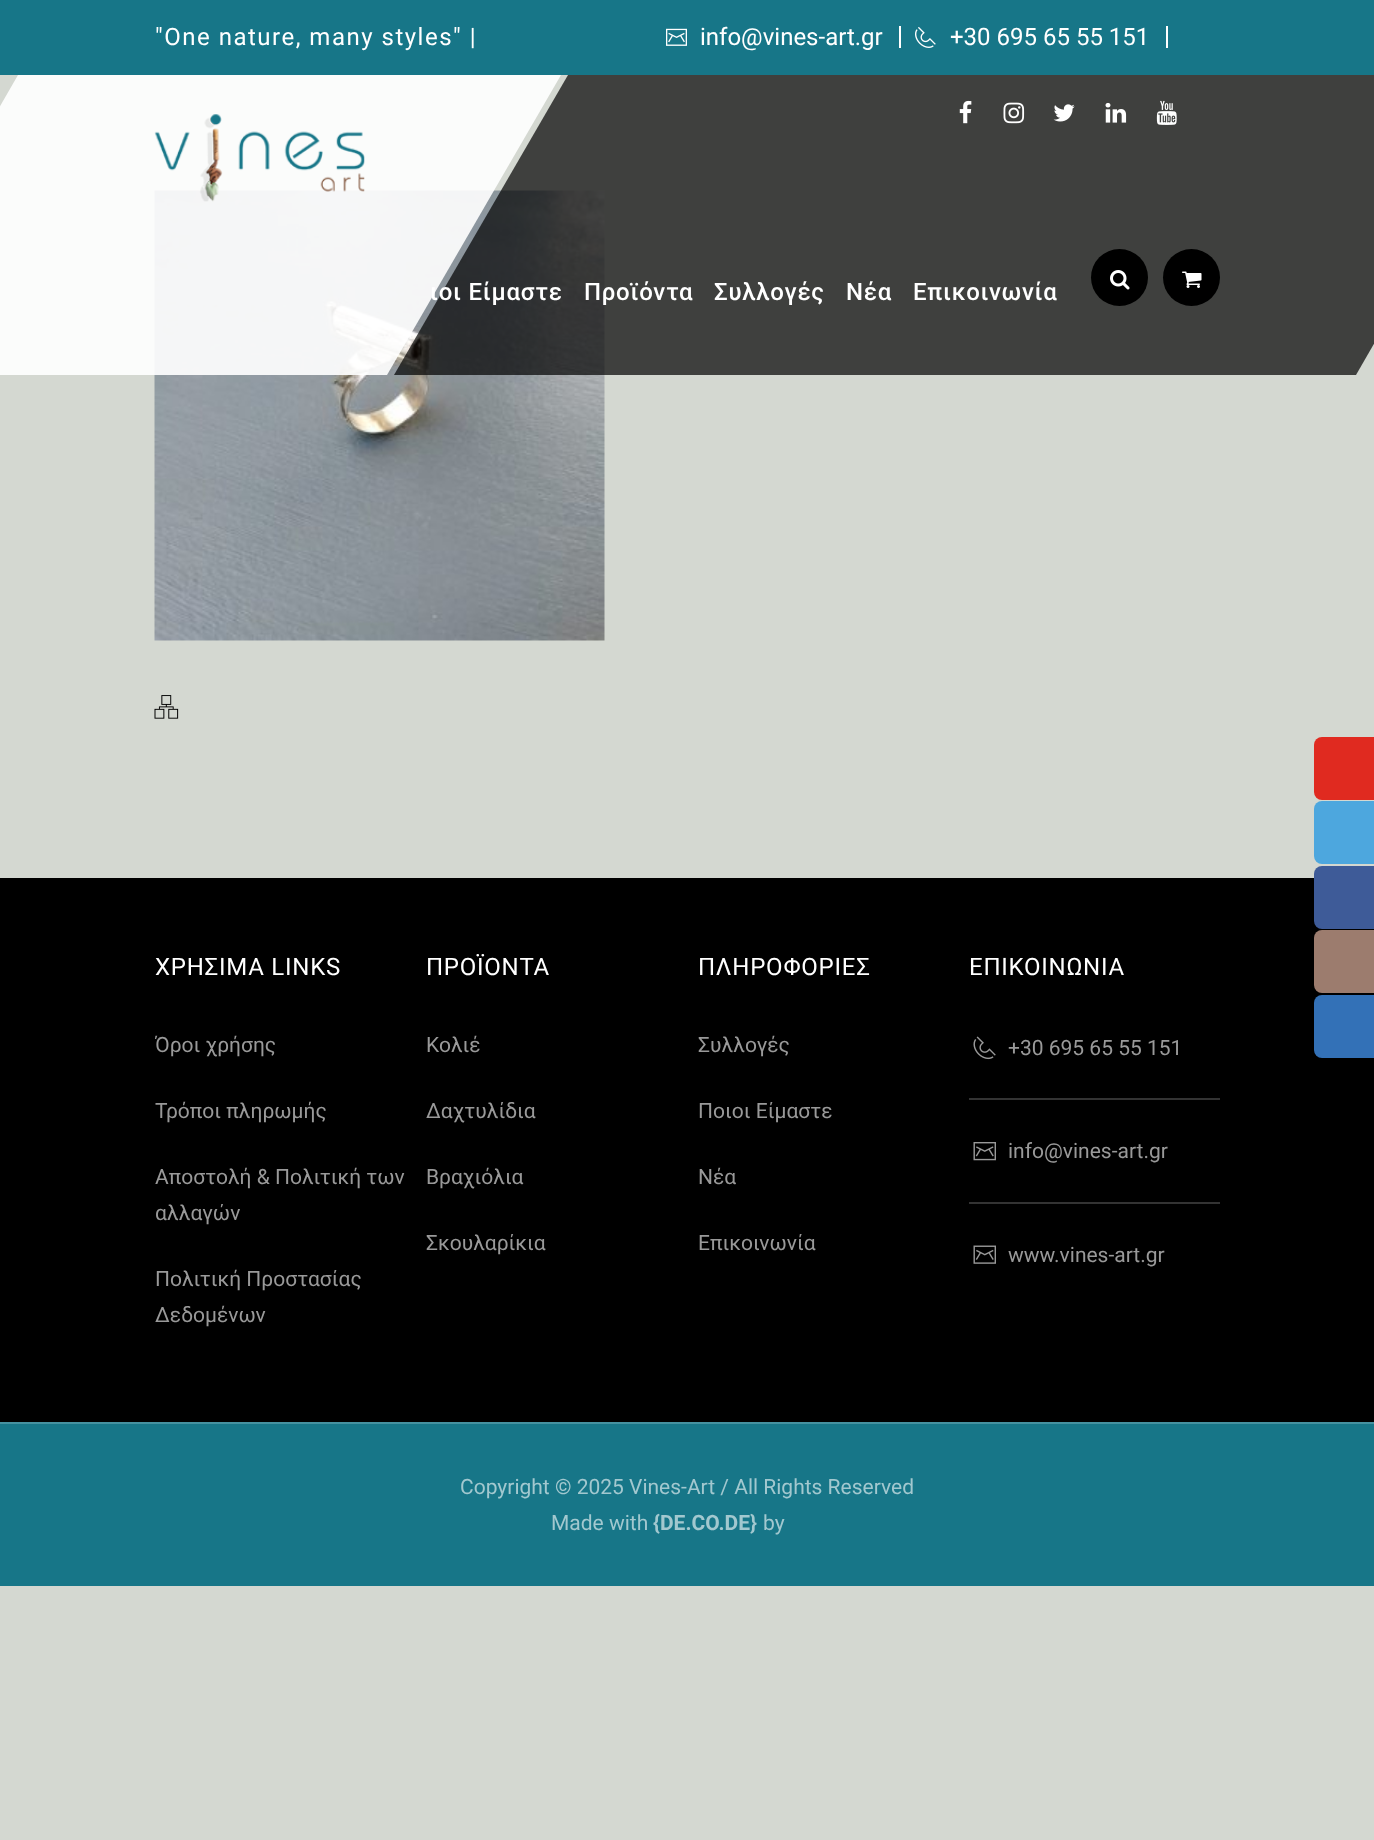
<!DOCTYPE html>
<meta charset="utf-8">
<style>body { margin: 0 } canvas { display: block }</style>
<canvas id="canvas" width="1374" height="1840"></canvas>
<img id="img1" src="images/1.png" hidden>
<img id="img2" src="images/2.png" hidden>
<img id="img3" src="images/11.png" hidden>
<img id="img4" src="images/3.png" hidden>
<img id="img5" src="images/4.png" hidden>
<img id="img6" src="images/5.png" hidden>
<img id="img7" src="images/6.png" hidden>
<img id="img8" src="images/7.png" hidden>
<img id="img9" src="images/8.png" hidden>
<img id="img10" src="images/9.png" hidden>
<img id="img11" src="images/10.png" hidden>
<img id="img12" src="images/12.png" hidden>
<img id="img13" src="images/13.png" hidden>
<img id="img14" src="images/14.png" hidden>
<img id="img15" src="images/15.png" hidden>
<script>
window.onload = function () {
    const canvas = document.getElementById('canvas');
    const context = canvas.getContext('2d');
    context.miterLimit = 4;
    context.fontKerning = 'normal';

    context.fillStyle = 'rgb(212, 216, 209)';
    context.fillRect(0, 0, 1374, 1840);
    context.fillStyle = 'rgb(23, 118, 136)';
    context.fillRect(0, 0, 1374, 75);
    context.drawImage(document.getElementById('img1'), 666, 28, 21, 18);
    context.fillStyle = 'rgb(255, 255, 255)';
    context.fillRect(899, 26, 2, 22);
    context.drawImage(document.getElementById('img2'), 915, 27, 21, 21);
    context.fillRect(1166, 26, 2, 22);
    context.drawImage(document.getElementById('img3'), 154, 190, 451, 451);
    context.fillStyle = 'rgba(255, 255, 255, 0.91)';
    context.beginPath();
    context.moveTo(18, 75);
    context.lineTo(561, 75);
    context.lineTo(387, 375);
    context.lineTo(-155, 375);
    context.closePath();
    context.fill();
    context.fillStyle = 'rgba(0, 0, 0, 0.7)';
    context.beginPath();
    context.moveTo(568, 75);
    context.lineTo(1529, 75);
    context.lineTo(1356, 375);
    context.lineTo(394, 375);
    context.closePath();
    context.fill();
    context.drawImage(document.getElementById('img4'), 959, 100, 13, 24);
    context.drawImage(document.getElementById('img5'), 1003, 102, 22, 22);
    context.drawImage(document.getElementById('img6'), 1053, 104, 22, 18);
    context.drawImage(document.getElementById('img7'), 1105, 102, 22, 21);
    context.drawImage(document.getElementById('img8'), 1156, 100, 21, 25);
    context.drawImage(document.getElementById('img9'), 154, 114, 211, 88);
    context.fillStyle = 'rgb(0, 0, 0)';
    context.beginPath();
    context.arc(1119.5, 277.5, 28.5, 0, 2 * Math.PI);
    context.fill();
    context.drawImage(document.getElementById('img10'), 1110, 270, 20, 20);
    context.beginPath();
    context.arc(1191.5, 277.5, 28.5, 0, 2 * Math.PI);
    context.fill();
    context.drawImage(document.getElementById('img11'), 1182, 271, 20, 17);
    context.drawImage(document.getElementById('img12'), 154, 695, 25, 24);
    context.fillRect(0, 878, 1374, 544);
    context.drawImage(document.getElementById('img13'), 973, 1036, 23, 24);
    context.fillStyle = 'rgb(51, 51, 51)';
    context.fillRect(969, 1098, 251, 2);
    context.drawImage(document.getElementById('img14'), 973, 1142, 23, 19);
    context.fillRect(969, 1202, 251, 2);
    context.drawImage(document.getElementById('img15'), 973, 1245, 23, 19);
    context.fillStyle = 'rgb(23, 118, 136)';
    context.fillRect(0, 1424, 1374, 162);
    context.fillStyle = 'rgb(69, 145, 160)';
    context.fillRect(0, 1422, 1374, 2);
    context.fillStyle = 'rgb(224, 42, 32)';
    context.beginPath();
    context.roundRect(1314, 737, 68, 63, 8);
    context.fill();
    context.fillStyle = 'rgb(77, 167, 222)';
    context.beginPath();
    context.roundRect(1314, 801, 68, 63, 8);
    context.fill();
    context.fillStyle = 'rgb(62, 91, 152)';
    context.beginPath();
    context.roundRect(1314, 866, 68, 63, 8);
    context.fill();
    context.fillStyle = 'rgb(156, 124, 110)';
    context.beginPath();
    context.roundRect(1314, 930, 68, 63, 8);
    context.fill();
    context.fillStyle = 'rgb(51, 113, 183)';
    context.beginPath();
    context.roundRect(1314, 995, 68, 63, 8);
    context.fill();
    context.letterSpacing = '1.5px';
    context.font = '24px Roboto';
    context.fillStyle = 'rgb(255, 255, 255)';
    context.fillText('"One nature, many styles" |', 155, 45);
    context.letterSpacing = '0px';
    context.fillText('info@vines-art.gr', 700, 45);
    context.fillText('+30 695 65 55 151', 950, 45);
    context.letterSpacing = '0.75px';
    context.font = '500 24px Roboto';
    context.fillText('ιοι Είμαστε', 430, 300);
    context.fillText('Προϊόντα', 584, 300);
    context.fillText('Συλλογές', 714, 300);
    context.fillText('Νέα', 846, 300);
    context.fillText('Επικοινωνία', 913, 300);
    context.font = '24px Roboto';
    context.fillText('ΧΡΗΣΙΜΑ LINKS', 155, 975);
    context.letterSpacing = '0px';
    context.font = '21px Roboto';
    context.fillStyle = 'rgb(153, 153, 153)';
    context.fillText('Όροι χρήσης', 155, 1052);
    context.fillText('Τρόποι πληρωμής', 155, 1118);
    context.fillText('Αποστολή & Πολιτική των', 155, 1184);
    context.fillText('αλλαγών', 155, 1220);
    context.fillText('Πολιτική Προστασίας', 155, 1286);
    context.fillText('Δεδομένων', 155, 1322);
    context.letterSpacing = '0.75px';
    context.font = '24px Roboto';
    context.fillStyle = 'rgb(255, 255, 255)';
    context.fillText('ΠΡΟΪΟΝΤΑ', 426, 975);
    context.letterSpacing = '0px';
    context.font = '21px Roboto';
    context.fillStyle = 'rgb(153, 153, 153)';
    context.fillText('Κολιέ', 426, 1052);
    context.fillText('Δαχτυλίδια', 426, 1118);
    context.fillText('Βραχιόλια', 426, 1184);
    context.fillText('Σκουλαρίκια', 426, 1250);
    context.letterSpacing = '0.75px';
    context.font = '24px Roboto';
    context.fillStyle = 'rgb(255, 255, 255)';
    context.fillText('ΠΛΗΡΟΦΟΡΙΕΣ', 698, 975);
    context.letterSpacing = '0px';
    context.font = '21px Roboto';
    context.fillStyle = 'rgb(153, 153, 153)';
    context.fillText('Συλλογές', 698, 1052);
    context.fillText('Ποιοι Είμαστε', 698, 1118);
    context.fillText('Νέα', 698, 1184);
    context.fillText('Επικοινωνία', 698, 1250);
    context.letterSpacing = '0.75px';
    context.font = '24px Roboto';
    context.fillStyle = 'rgb(255, 255, 255)';
    context.fillText('ΕΠΙΚΟΙΝΩΝΙΑ', 969, 975);
    context.letterSpacing = '0px';
    context.font = '21px Roboto';
    context.fillStyle = 'rgb(153, 153, 153)';
    context.fillText('+30 695 65 55 151', 1008, 1055);
    context.fillText('info@vines-art.gr', 1008, 1158);
    context.fillText('www.vines-art.gr', 1008, 1262);
    context.fillStyle = 'rgb(162, 200, 207)';
    context.fillText('Copyright © 2025 Vines-Art / All Rights Reserved', 460, 1494);
    context.fillText('Made with', 551, 1530);
    context.font = 'bold 21px Roboto';
    context.fillText('{DE.CO.DE}', 653, 1530);
    context.font = '21px Roboto';
    context.fillText('by', 763, 1530);
};
</script>
